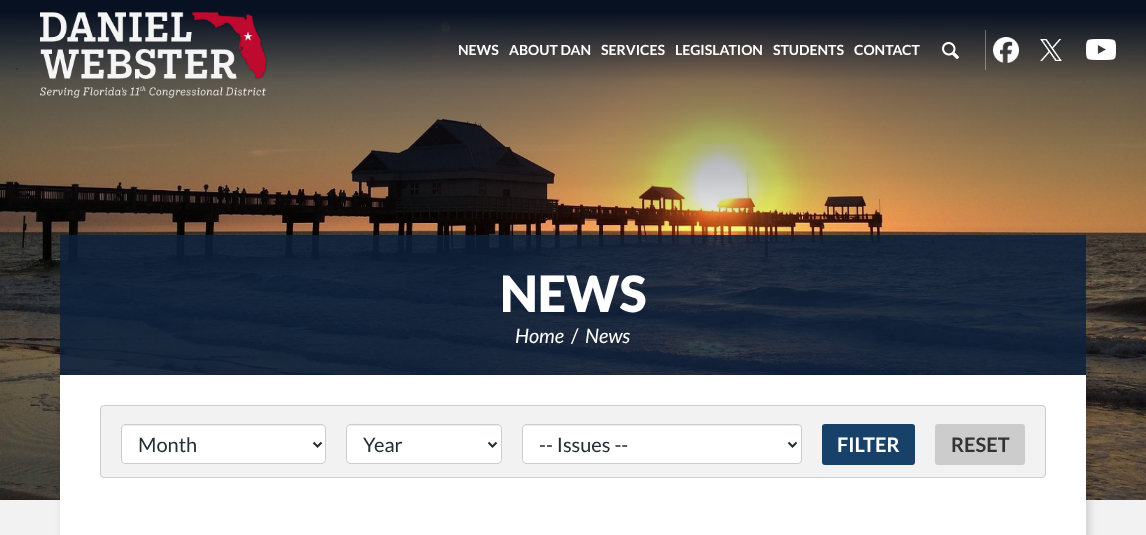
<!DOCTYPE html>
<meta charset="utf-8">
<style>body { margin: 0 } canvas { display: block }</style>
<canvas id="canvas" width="1146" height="535"></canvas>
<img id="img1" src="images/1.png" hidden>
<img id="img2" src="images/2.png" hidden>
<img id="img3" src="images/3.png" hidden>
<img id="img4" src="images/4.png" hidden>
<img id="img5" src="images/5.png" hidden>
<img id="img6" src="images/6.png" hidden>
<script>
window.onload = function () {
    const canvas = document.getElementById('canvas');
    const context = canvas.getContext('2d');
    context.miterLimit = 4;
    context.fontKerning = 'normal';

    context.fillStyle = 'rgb(242, 242, 242)';
    context.fillRect(0, 0, 1146, 535);
    context.drawImage(document.getElementById('img1'), 0, 0, 1146, 500);
    context.drawImage(document.getElementById('img2'), 40, 11, 227, 87);
    context.drawImage(document.getElementById('img3'), 942, 42, 18, 18);
    context.drawImage(document.getElementById('img4'), 993, 37, 26, 26);
    context.fillStyle = 'rgba(255, 255, 255, 0.35)';
    context.fillRect(985, 30, 1, 40);
    context.drawImage(document.getElementById('img5'), 1040, 39, 22, 22);
    context.drawImage(document.getElementById('img6'), 1086, 39, 30, 21);
    context.fillStyle = 'rgba(13, 33, 60, 0.85)';
    context.fillRect(60, 235, 1026, 140);
    context.fillStyle = 'rgba(0, 0, 0, 0.16)';
    context.filter = 'blur(5px)';
    context.beginPath();
    context.rect(63, 378, 1026, 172);
    context.fill();
    context.filter = 'none';
    context.fillStyle = 'rgb(255, 255, 255)';
    context.fillRect(60, 375, 1026, 160);
    context.fillStyle = 'rgb(242, 242, 242)';
    context.beginPath();
    context.roundRect(100.5, 405.5, 945, 72, 3.5);
    context.fill();
    context.strokeStyle = 'rgb(204, 204, 204)';
    context.stroke();
    context.fillStyle = 'rgb(255, 255, 255)';
    context.beginPath();
    context.roundRect(121, 424, 205, 40, 4);
    context.fill();
    context.fillStyle = 'rgb(236, 236, 236)';
    context.beginPath();
    context.moveTo(125, 426);
    context.lineTo(322, 426);
    context.bezierCurveTo(324, 426, 325, 427, 325, 429);
    context.bezierCurveTo(325, 427, 324, 425, 322, 425);
    context.lineTo(125, 425);
    context.bezierCurveTo(123, 425, 122, 427, 122, 429);
    context.bezierCurveTo(122, 427, 123, 426, 125, 426);
    context.closePath();
    context.fill();
    context.beginPath();
    context.roundRect(121.5, 424.5, 204, 39, 3.5);
    context.stroke();
    context.beginPath();
    context.moveTo(313.5, 442.5);
    context.lineTo(317.5, 446.5);
    context.lineTo(321.5, 442.5);
    context.strokeStyle = 'rgb(35, 45, 50)';
    context.lineWidth = 2;
    context.stroke();
    context.fillStyle = 'rgb(255, 255, 255)';
    context.beginPath();
    context.roundRect(346, 424, 156, 40, 4);
    context.fill();
    context.fillStyle = 'rgb(236, 236, 236)';
    context.beginPath();
    context.moveTo(350, 426);
    context.lineTo(498, 426);
    context.bezierCurveTo(500, 426, 501, 427, 501, 429);
    context.bezierCurveTo(501, 427, 501, 426, 499, 425);
    context.lineTo(375, 425);
    context.bezierCurveTo(367, 425, 347, 420, 347, 429);
    context.bezierCurveTo(347, 427, 348, 426, 350, 426);
    context.closePath();
    context.fill();
    context.beginPath();
    context.roundRect(346.5, 424.5, 155, 39, 3.5);
    context.strokeStyle = 'rgb(204, 204, 204)';
    context.lineWidth = 1;
    context.stroke();
    context.beginPath();
    context.moveTo(488.5, 442.5);
    context.lineTo(492.5, 446.5);
    context.lineTo(496.5, 442.5);
    context.strokeStyle = 'rgb(35, 45, 50)';
    context.lineWidth = 2;
    context.stroke();
    context.fillStyle = 'rgb(255, 255, 255)';
    context.beginPath();
    context.roundRect(522, 424, 280, 40, 4);
    context.fill();
    context.fillStyle = 'rgb(236, 236, 236)';
    context.beginPath();
    context.moveTo(526, 426);
    context.lineTo(798, 426);
    context.bezierCurveTo(800, 426, 801, 427, 801, 429);
    context.lineTo(801, 428);
    context.bezierCurveTo(801, 426, 800, 425, 798, 425);
    context.lineTo(526, 425);
    context.bezierCurveTo(524, 425, 523, 426, 523, 428);
    context.lineTo(523, 429);
    context.bezierCurveTo(523, 427, 524, 426, 526, 426);
    context.closePath();
    context.fill();
    context.beginPath();
    context.roundRect(522.5, 424.5, 279, 39, 3.5);
    context.strokeStyle = 'rgb(204, 204, 204)';
    context.lineWidth = 1;
    context.stroke();
    context.beginPath();
    context.moveTo(788.5, 442.5);
    context.lineTo(792.5, 446.5);
    context.lineTo(796.5, 442.5);
    context.strokeStyle = 'rgb(35, 45, 50)';
    context.lineWidth = 2;
    context.stroke();
    context.fillStyle = 'rgb(24, 65, 106)';
    context.beginPath();
    context.roundRect(822, 424, 93, 41, 3);
    context.fill();
    context.fillStyle = 'rgb(204, 204, 204)';
    context.beginPath();
    context.roundRect(935, 424, 90, 41, 3);
    context.fill();
    context.font = 'bold 14px Lato';
    context.fillStyle = 'rgb(255, 255, 255)';
    context.fillText('NEWS', 458, 55);
    context.fillText('ABOUT DAN', 509, 55);
    context.fillText('SERVICES', 601, 55);
    context.fillText('LEGISLATION', 675, 55);
    context.fillText('STUDENTS', 773, 55);
    context.fillText('CONTACT', 854, 55);
    context.font = '900 50px Lato';
    context.fillText('NEWS', 500, 312);
    context.font = 'italic 20px Lato';
    context.fillText('Home', 515, 343);
    context.font = '20px Lato';
    context.fillText('/', 571, 343);
    context.font = 'italic 20px Lato';
    context.fillText('News', 585, 343);
    context.font = '20px Lato';
    context.fillStyle = 'rgb(35, 45, 50)';
    context.fillText('Month', 138, 452);
    context.fillText('Year', 363, 452);
    context.fillText('-- Issues --', 539, 452);
    context.font = 'bold 20px Lato';
    context.fillStyle = 'rgb(255, 255, 255)';
    context.fillText('FILTER', 837, 452);
    context.fillStyle = 'rgb(51, 51, 51)';
    context.fillText('RESET', 951, 452);
};
</script>
